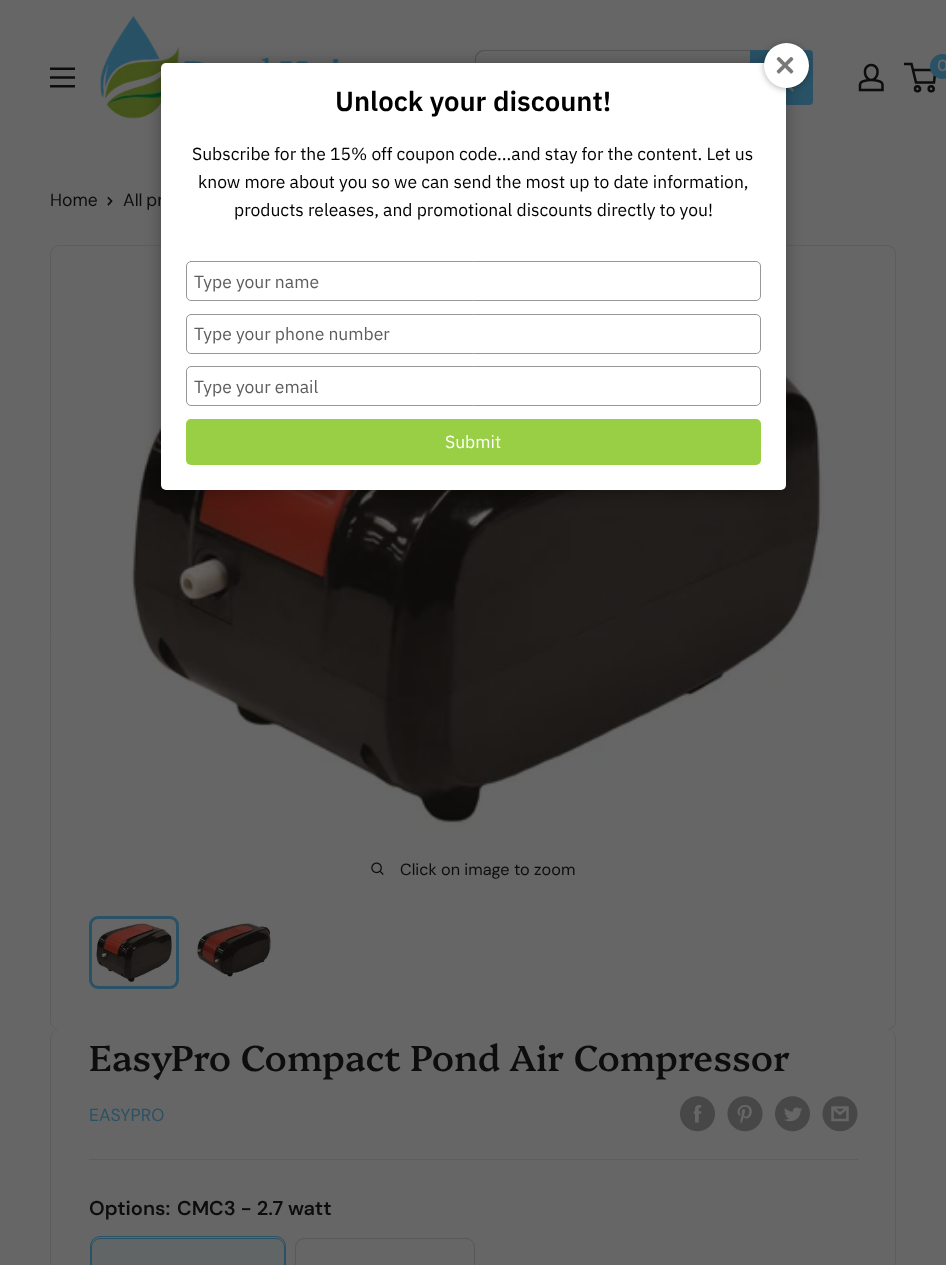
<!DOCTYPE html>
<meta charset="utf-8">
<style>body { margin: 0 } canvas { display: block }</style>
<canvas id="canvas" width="946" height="1265"></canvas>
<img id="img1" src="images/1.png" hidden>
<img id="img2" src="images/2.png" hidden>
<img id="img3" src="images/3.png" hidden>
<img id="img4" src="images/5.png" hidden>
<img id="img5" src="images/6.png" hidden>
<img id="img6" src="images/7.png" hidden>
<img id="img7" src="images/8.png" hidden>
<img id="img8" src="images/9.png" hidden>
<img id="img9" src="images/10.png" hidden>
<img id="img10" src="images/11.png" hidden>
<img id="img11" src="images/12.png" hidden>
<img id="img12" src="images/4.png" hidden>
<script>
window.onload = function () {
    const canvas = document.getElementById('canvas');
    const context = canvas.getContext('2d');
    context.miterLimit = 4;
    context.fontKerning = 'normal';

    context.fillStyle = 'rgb(102, 102, 102)';
    context.fillRect(0, 0, 946, 1265);
    context.drawImage(document.getElementById('img1'), 100, 16, 239, 103);
    context.fillStyle = 'rgba(39, 40, 42, 0.3)';
    context.beginPath();
    context.moveTo(485, 51);
    context.lineTo(805, 51);
    context.bezierCurveTo(807, 51, 809, 52, 811, 53);
    context.bezierCurveTo(809, 51, 807, 50, 804, 50);
    context.lineTo(484, 50);
    context.bezierCurveTo(479, 50, 475, 54, 475, 59);
    context.lineTo(475, 96);
    context.bezierCurveTo(475, 98, 476, 101, 477, 102);
    context.bezierCurveTo(477, 101, 476, 99, 476, 98);
    context.lineTo(476, 60);
    context.bezierCurveTo(476, 55, 480, 51, 485, 51);
    context.closePath();
    context.fill();
    context.fillStyle = 'rgb(41, 82, 102)';
    context.beginPath();
    context.roundRect(750, 50, 63, 55, [0, 4, 4, 0]);
    context.fill();
    context.beginPath();
    context.moveTo(792.5, 90);
    context.lineTo(786, 84);
    context.strokeStyle = 'rgb(102, 102, 102)';
    context.lineWidth = 2.5;
    context.lineCap = 'square';
    context.stroke();
    context.drawImage(document.getElementById('img2'), 858, 63, 26, 29);
    context.beginPath();
    context.arc(917.5, 88.8, 2.5, 0, 2 * Math.PI);
    context.strokeStyle = 'rgb(13, 13, 14)';
    context.stroke();
    context.beginPath();
    context.arc(931.2, 88.8, 2.5, 0, 2 * Math.PI);
    context.stroke();
    context.beginPath();
    context.moveTo(913, 70);
    context.lineTo(935.5, 70);
    context.lineTo(934, 82.5);
    context.lineTo(916, 82.5);
    context.lineTo(911.5, 64);
    context.lineTo(904, 64);
    context.lineCap = 'butt';
    context.stroke();
    context.beginPath();
    context.arc(942.5, 66.5, 12.5, 0, 2 * Math.PI);
    context.fill();
    context.drawImage(document.getElementById('img3'), 50, 67, 25, 21);
    context.beginPath();
    context.roundRect(50.5, 245.5, 845, 784, 8.5);
    context.strokeStyle = 'rgb(93, 93, 93)';
    context.lineWidth = 1;
    context.stroke();
    context.drawImage(document.getElementById('img4'), 131, 291, 693, 536);
    context.fillStyle = 'rgba(0, 0, 0, 0.3)';
    context.filter = 'blur(8px)';
    context.beginPath();
    context.roundRect(161, 64, 625, 427, 5);
    context.fill();
    context.filter = 'none';
    context.beginPath();
    context.moveTo(108.5, 198);
    context.lineTo(111.5, 201);
    context.lineTo(108.5, 204.5);
    context.strokeStyle = 'rgb(13, 13, 14)';
    context.lineWidth = 1.7;
    context.lineCap = 'square';
    context.stroke();
    context.drawImage(document.getElementById('img5'), 371, 862, 13, 13);
    context.beginPath();
    context.roundRect(90.5, 917.5, 87, 70, 7.5);
    context.strokeStyle = 'rgb(41, 82, 102)';
    context.lineWidth = 3;
    context.stroke();
    context.drawImage(document.getElementById('img6'), 93, 921, 80, 63);
    context.drawImage(document.getElementById('img7'), 196, 921, 76, 57);
    context.fillStyle = 'rgb(102, 102, 102)';
    context.beginPath();
    context.moveTo(59, 1029);
    context.bezierCurveTo(54, 1029, 50, 1034, 50, 1039);
    context.bezierCurveTo(50, 1034, 54, 1030, 59, 1030);
    context.lineTo(888, 1030);
    context.bezierCurveTo(891, 1030, 894, 1032, 896, 1036);
    context.bezierCurveTo(895, 1032, 891, 1029, 887, 1029);
    context.closePath();
    context.fill();
    context.fillStyle = 'rgb(93, 93, 93)';
    context.beginPath();
    context.moveTo(59, 1030);
    context.lineTo(888, 1030);
    context.bezierCurveTo(892, 1030, 896, 1034, 896, 1039);
    context.lineTo(896, 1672);
    context.bezierCurveTo(896, 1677, 892, 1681, 888, 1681);
    context.lineTo(59, 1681);
    context.bezierCurveTo(54, 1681, 50, 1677, 50, 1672);
    context.lineTo(50, 1039);
    context.bezierCurveTo(50, 1034, 54, 1030, 59, 1030);
    context.closePath();
    context.moveTo(59, 1030);
    context.lineTo(888, 1030);
    context.bezierCurveTo(892, 1030, 895, 1034, 895, 1039);
    context.lineTo(895, 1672);
    context.bezierCurveTo(895, 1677, 892, 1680, 888, 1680);
    context.lineTo(59, 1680);
    context.bezierCurveTo(55, 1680, 51, 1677, 51, 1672);
    context.lineTo(51, 1039);
    context.bezierCurveTo(51, 1034, 55, 1030, 59, 1030);
    context.closePath();
    context.fill('evenodd');
    context.drawImage(document.getElementById('img8'), 680, 1096, 35, 36);
    context.drawImage(document.getElementById('img9'), 727, 1096, 36, 36);
    context.drawImage(document.getElementById('img10'), 775, 1096, 35, 36);
    context.drawImage(document.getElementById('img11'), 822, 1096, 36, 36);
    context.fillRect(89, 1159, 769, 1);
    context.beginPath();
    context.roundRect(90.5, 1236.5, 195, 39, 9.5);
    context.lineWidth = 1;
    context.stroke();
    context.fillStyle = 'rgba(41, 82, 102, 0.06)';
    context.fillRect(91, 1238, 194, 27);
    context.beginPath();
    context.roundRect(91.5, 1238.5, 193, 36, 8.5);
    context.stroke();
    context.beginPath();
    context.roundRect(295.5, 1238.5, 179, 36, 8.5);
    context.strokeStyle = 'rgb(88, 88, 88)';
    context.stroke();
    context.font = '600 16px "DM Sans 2"';
    context.fillStyle = 'rgb(102, 102, 102)';
    context.fillText('0', 937, 71);
    context.font = '17.5px DM Sans';
    context.fillStyle = 'rgb(13, 13, 14)';
    context.fillText('Home', 50, 206);
    context.wordSpacing = '-1px';
    context.fillText('All pr', 123, 206);
    context.fillStyle = 'rgb(255, 255, 255)';
    context.beginPath();
    context.roundRect(161, 63, 625, 427, 5);
    context.fill();
    context.beginPath();
    context.roundRect(186.5, 366.5, 574, 39, 4.5);
    context.strokeStyle = 'rgb(151, 151, 151)';
    context.stroke();
    context.wordSpacing = '0px';
    context.font = '17.5px IBM Plex Sans';
    context.fillStyle = 'rgb(93, 93, 93)';
    context.fillText('Type your email', 194, 393);
    context.beginPath();
    context.roundRect(186.5, 314.5, 574, 39, 4.5);
    context.stroke();
    context.fillText('Type your phone number', 194, 340);
    context.beginPath();
    context.roundRect(186.5, 261.5, 574, 39, 4.5);
    context.stroke();
    context.fillText('Type your name', 194, 288);
    context.fillStyle = 'rgba(0, 0, 0, 0.3)';
    context.filter = 'blur(3px)';
    context.beginPath();
    context.roundRect(764, 44, 45, 45, 22.5);
    context.fill();
    context.filter = 'none';
    context.fillStyle = 'rgb(255, 255, 255)';
    context.beginPath();
    context.arc(786.5, 65.5, 22.5, 0, 2 * Math.PI);
    context.fill();
    context.drawImage(document.getElementById('img12'), 776, 57, 18, 17);
    context.fillStyle = 'rgb(152, 207, 69)';
    context.beginPath();
    context.roundRect(186, 419, 575, 46, 5);
    context.fill();
    context.fillStyle = 'rgb(255, 255, 255)';
    context.fillText('Submit', 445, 448);
    context.fillStyle = 'rgb(0, 0, 0)';
    context.fillText('products releases, and promotional discounts directly to you!', 234, 216);
    context.fillText('know more about you so we can send the most up to date information,', 198, 188);
    context.fillText('Subscribe for the 15% off coupon code...and stay for the content. Let us', 192, 160);
    context.font = '600 27.5px IBM Plex Sans';
    context.fillText('Unlock your discount!', 335, 111);
    context.font = '16.25px "DM Sans 2"';
    context.fillStyle = 'rgb(13, 13, 14)';
    context.fillText('Click on image to zoom', 400, 875);
    context.font = '500 36.25px Platypi';
    context.fillText('EasyPro Compact Pond Air Compressor', 89, 1071);
    context.font = '17.5px DM Sans';
    context.fillStyle = 'rgb(41, 82, 102)';
    context.fillText('EASYPRO', 89, 1121);
    context.font = '600 20px DM Sans';
    context.fillStyle = 'rgb(13, 13, 14)';
    context.fillText('Options:', 89, 1215);
    context.fillText('CMC3 - 2.7 watt', 177, 1215);
};
</script>
